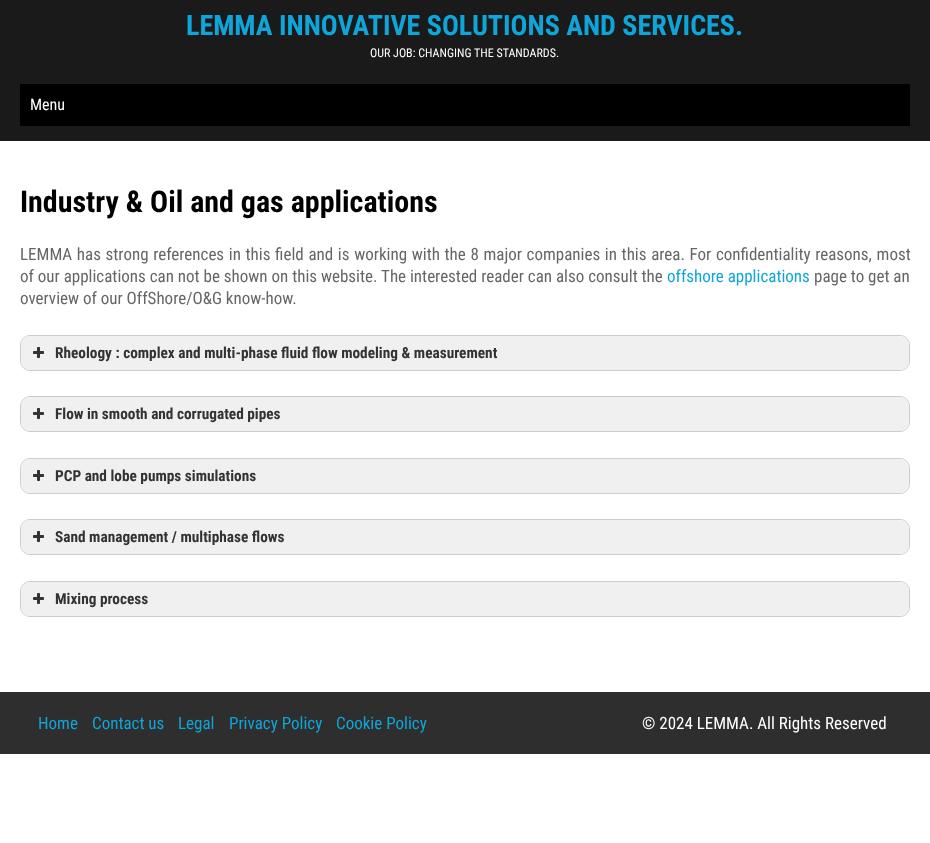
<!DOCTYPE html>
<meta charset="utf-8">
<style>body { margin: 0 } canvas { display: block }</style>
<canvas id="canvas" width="930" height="843"></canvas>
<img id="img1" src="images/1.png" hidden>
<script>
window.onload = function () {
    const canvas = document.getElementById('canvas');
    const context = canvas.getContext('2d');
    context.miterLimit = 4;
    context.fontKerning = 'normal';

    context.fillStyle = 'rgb(255, 255, 255)';
    context.fillRect(0, 0, 930, 843);
    context.fillStyle = 'rgb(26, 26, 26)';
    context.fillRect(0, 0, 930, 141);
    context.fillStyle = 'rgb(0, 0, 0)';
    context.fillRect(20, 84, 890, 42);
    context.beginPath();
    context.roundRect(20.5, 335.5, 889, 35, 9.5);
    context.strokeStyle = 'rgb(204, 204, 204)';
    context.stroke();
    context.fillStyle = 'rgb(240, 240, 240)';
    context.beginPath();
    context.roundRect(21, 336, 888, 34, 10);
    context.fill();
    context.drawImage(document.getElementById('img1'), 33, 347, 11, 11);
    context.beginPath();
    context.roundRect(20.5, 396.5, 889, 35, 9.5);
    context.stroke();
    context.beginPath();
    context.roundRect(21, 397, 888, 34, 10);
    context.fill();
    context.drawImage(document.getElementById('img1'), 33, 408, 11, 11);
    context.beginPath();
    context.roundRect(20.5, 458.5, 889, 35, 9.5);
    context.stroke();
    context.beginPath();
    context.roundRect(21, 459, 888, 34, 10);
    context.fill();
    context.drawImage(document.getElementById('img1'), 33, 470, 11, 11);
    context.beginPath();
    context.roundRect(20.5, 519.5, 889, 35, 9.5);
    context.stroke();
    context.beginPath();
    context.roundRect(21, 520, 888, 34, 10);
    context.fill();
    context.drawImage(document.getElementById('img1'), 33, 531, 11, 11);
    context.beginPath();
    context.roundRect(20.5, 581.5, 889, 35, 9.5);
    context.stroke();
    context.beginPath();
    context.roundRect(21, 582, 888, 34, 10);
    context.fill();
    context.drawImage(document.getElementById('img1'), 33, 593, 11, 11);
    context.fillStyle = 'rgb(46, 46, 46)';
    context.fillRect(0, 692, 930, 62);
    context.font = 'bold 28px Roboto Condensed';
    context.fillStyle = 'rgb(15, 165, 217)';
    context.fillText('LEMMA INNOVATIVE SOLUTIONS AND SERVICES.', 186, 35);
    context.font = '12px Roboto Condensed';
    context.fillStyle = 'rgb(255, 255, 255)';
    context.fillText('OUR JOB: CHANGING THE STANDARDS.', 370, 57);
    context.font = '16px Roboto Condensed';
    context.fillText('Menu', 30, 110);
    context.font = 'bold 30px Roboto Condensed';
    context.fillStyle = 'rgb(0, 0, 0)';
    context.fillText('Industry & Oil and gas applications', 20, 212);
    context.wordSpacing = '0.75px';
    context.font = '17px Roboto Condensed';
    context.fillStyle = 'rgb(102, 102, 102)';
    context.fillText('LEMMA has strong references in this field and is working with the 8 major companies in this area. For confidentiality reasons, most', 20, 260);
    context.wordSpacing = '0px';
    context.fillText('of our applications can not be shown on this website. The interested reader can also consult the', 20, 282);
    context.fillStyle = 'rgb(15, 165, 217)';
    context.fillText('offshore applications', 667, 282);
    context.fillStyle = 'rgb(102, 102, 102)';
    context.fillText('page to get an', 814, 282);
    context.fillText('overview of our OffShore/O&G know-how.', 20, 304);
    context.font = 'bold 15.3px Roboto Condensed';
    context.fillStyle = 'rgb(51, 51, 51)';
    context.fillText('Rheology : complex and multi-phase fluid flow modeling & measurement', 55, 358);
    context.fillText('Flow in smooth and corrugated pipes', 55, 419);
    context.fillText('PCP and lobe pumps simulations', 55, 481);
    context.fillText('Sand management / multiphase flows', 55, 542);
    context.fillText('Mixing process', 55, 604);
    context.font = '17px Roboto Condensed';
    context.fillStyle = 'rgb(15, 165, 217)';
    context.fillText('Home', 38, 729);
    context.fillText('Contact us', 92, 729);
    context.fillText('Legal', 178, 729);
    context.fillText('Privacy Policy', 229, 729);
    context.fillText('Cookie Policy', 336, 729);
    context.fillStyle = 'rgb(255, 255, 255)';
    context.fillText('© 2024 LEMMA. All Rights Reserved', 642, 729);
};
</script>
